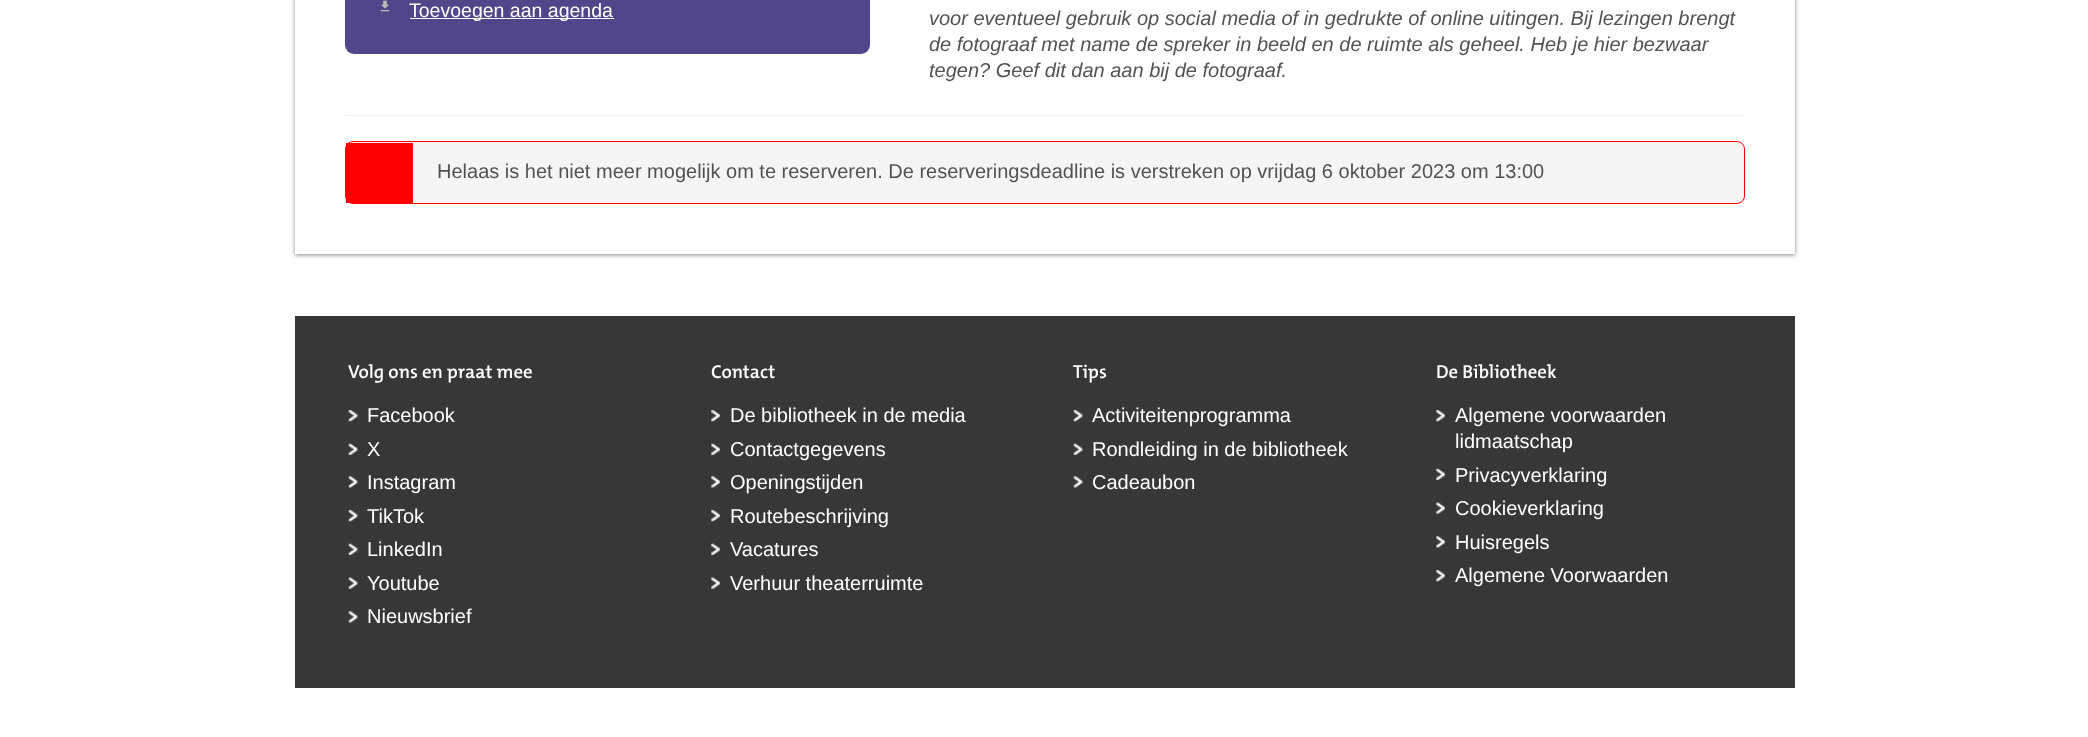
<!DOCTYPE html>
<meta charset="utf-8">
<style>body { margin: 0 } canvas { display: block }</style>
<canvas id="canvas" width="2088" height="737"></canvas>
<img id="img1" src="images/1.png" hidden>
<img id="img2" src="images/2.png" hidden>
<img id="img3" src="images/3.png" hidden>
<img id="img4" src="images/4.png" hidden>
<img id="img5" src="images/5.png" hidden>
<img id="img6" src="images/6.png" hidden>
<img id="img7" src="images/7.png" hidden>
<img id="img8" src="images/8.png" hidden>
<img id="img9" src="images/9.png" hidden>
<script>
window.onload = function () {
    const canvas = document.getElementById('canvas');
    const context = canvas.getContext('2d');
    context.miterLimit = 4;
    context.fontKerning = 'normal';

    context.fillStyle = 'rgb(255, 255, 255)';
    context.fillRect(0, 0, 2088, 737);
    context.fillStyle = 'rgb(134, 134, 134)';
    context.filter = 'blur(2px)';
    context.beginPath();
    context.rect(295, -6, 1500, 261);
    context.fill();
    context.filter = 'none';
    context.fillStyle = 'rgb(255, 255, 255)';
    context.fillRect(295, 0, 1500, 254);
    context.fillStyle = 'rgb(81, 70, 137)';
    context.beginPath();
    context.roundRect(345, -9, 525, 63, 9);
    context.fill();
    context.drawImage(document.getElementById('img1'), 380, 0, 10, 12);
    context.fillStyle = 'rgb(255, 255, 255)';
    context.fillRect(410, 18, 204, 1);
    context.fillStyle = 'rgb(239, 239, 239)';
    context.fillRect(345, 115, 1400, 1);
    context.fillStyle = 'rgb(245, 245, 245)';
    context.beginPath();
    context.roundRect(345.5, 141.5, 1399, 62, 7.5);
    context.fill();
    context.strokeStyle = 'rgb(255, 0, 0)';
    context.stroke();
    context.fillStyle = 'rgb(255, 0, 0)';
    context.fillRect(346, 143, 67, 60);
    context.fillStyle = 'rgb(55, 55, 55)';
    context.fillRect(295, 316, 1500, 372);
    context.drawImage(document.getElementById('img2'), 348, 410, 10, 12);
    context.drawImage(document.getElementById('img3'), 348, 443, 10, 12);
    context.drawImage(document.getElementById('img4'), 348, 476, 10, 12);
    context.drawImage(document.getElementById('img2'), 348, 510, 10, 12);
    context.drawImage(document.getElementById('img3'), 348, 543, 10, 12);
    context.drawImage(document.getElementById('img5'), 348, 577, 10, 12);
    context.drawImage(document.getElementById('img4'), 348, 611, 10, 12);
    context.drawImage(document.getElementById('img6'), 711, 410, 9, 12);
    context.drawImage(document.getElementById('img7'), 711, 443, 9, 12);
    context.drawImage(document.getElementById('img8'), 711, 476, 9, 12);
    context.drawImage(document.getElementById('img6'), 711, 510, 9, 12);
    context.drawImage(document.getElementById('img7'), 711, 543, 9, 12);
    context.drawImage(document.getElementById('img9'), 711, 577, 9, 12);
    context.drawImage(document.getElementById('img2'), 1073, 410, 10, 12);
    context.drawImage(document.getElementById('img3'), 1073, 443, 10, 12);
    context.drawImage(document.getElementById('img4'), 1073, 476, 10, 12);
    context.drawImage(document.getElementById('img6'), 1436, 410, 9, 12);
    context.drawImage(document.getElementById('img7'), 1436, 468, 9, 12);
    context.drawImage(document.getElementById('img9'), 1436, 502, 9, 12);
    context.drawImage(document.getElementById('img8'), 1436, 536, 9, 12);
    context.drawImage(document.getElementById('img6'), 1436, 570, 9, 12);
    context.font = '19.5px Liberation Sans';
    context.fillStyle = 'rgb(255, 255, 255)';
    context.fillText('Toevoegen aan agenda', 409, 17);
    context.font = 'italic 20px Liberation Sans';
    context.fillStyle = 'rgb(80, 84, 80)';
    context.fillText('voor eventueel gebruik op social media of in gedrukte of online uitingen. Bij lezingen brengt', 929, 25);
    context.fillText('de fotograaf met name de spreker in beeld en de ruimte als geheel. Heb je hier bezwaar', 929, 51);
    context.fillText('tegen? Geef dit dan aan bij de fotograaf.', 929, 77);
    context.font = '20px Liberation Sans';
    context.fillText('Helaas is het niet meer mogelijk om te reserveren. De reserveringsdeadline is verstreken op vrijdag 6 oktober 2023 om 13:00', 437, 178);
    context.font = '600 18.75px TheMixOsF';
    context.fillStyle = 'rgb(255, 255, 255)';
    context.fillText('Volg ons en praat mee', 348, 378);
    context.font = '20px Liberation Sans';
    context.fillText('Facebook', 367, 422);
    context.fillText('X', 367, 456);
    context.fillText('Instagram', 367, 489);
    context.fillText('TikTok', 367, 523);
    context.fillText('LinkedIn', 367, 556);
    context.fillText('Youtube', 367, 590);
    context.fillText('Nieuwsbrief', 367, 623);
    context.font = '600 18.75px TheMixOsF';
    context.fillText('Contact', 711, 378);
    context.font = '20px Liberation Sans';
    context.fillText('De bibliotheek in de media', 730, 422);
    context.fillText('Contactgegevens', 730, 456);
    context.fillText('Openingstijden', 730, 489);
    context.fillText('Routebeschrijving', 730, 523);
    context.fillText('Vacatures', 730, 556);
    context.fillText('Verhuur theaterruimte', 730, 590);
    context.font = '600 18.75px TheMixOsF';
    context.fillText('Tips', 1073, 378);
    context.font = '20px Liberation Sans';
    context.fillText('Activiteitenprogramma', 1092, 422);
    context.fillText('Rondleiding in de bibliotheek', 1092, 456);
    context.fillText('Cadeaubon', 1092, 489);
    context.font = '600 18.75px TheMixOsF';
    context.fillText('De Bibliotheek', 1436, 378);
    context.font = '20px Liberation Sans';
    context.fillText('Algemene voorwaarden', 1455, 422);
    context.fillText('lidmaatschap', 1455, 448);
    context.fillText('Privacyverklaring', 1455, 482);
    context.fillText('Cookieverklaring', 1455, 515);
    context.fillText('Huisregels', 1455, 549);
    context.fillText('Algemene Voorwaarden', 1455, 582);
};
</script>
